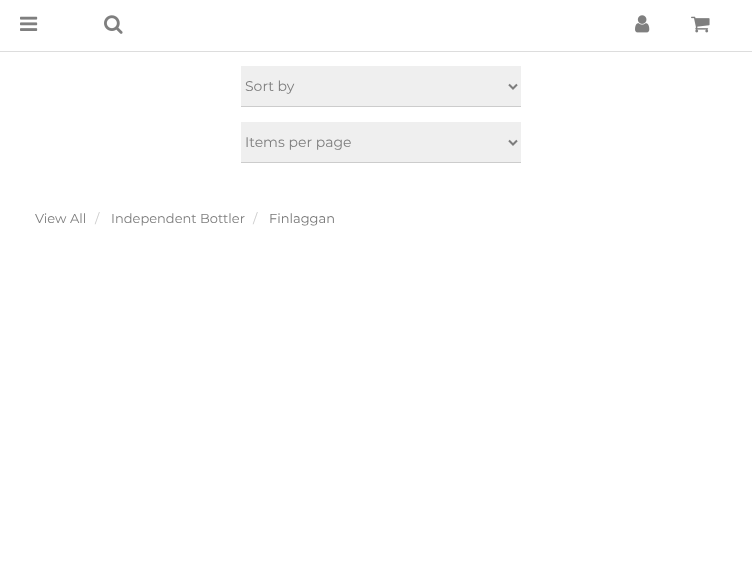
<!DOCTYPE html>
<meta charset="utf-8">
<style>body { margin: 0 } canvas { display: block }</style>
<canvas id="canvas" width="752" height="579"></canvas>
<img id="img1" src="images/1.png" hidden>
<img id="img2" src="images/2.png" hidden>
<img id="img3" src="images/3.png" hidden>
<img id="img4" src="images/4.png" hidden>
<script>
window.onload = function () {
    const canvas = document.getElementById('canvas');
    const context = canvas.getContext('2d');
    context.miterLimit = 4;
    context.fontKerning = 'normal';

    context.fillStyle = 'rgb(255, 255, 255)';
    context.fillRect(0, 0, 752, 579);
    context.fillStyle = 'rgb(221, 221, 221)';
    context.fillRect(0, 51, 752, 1);
    context.drawImage(document.getElementById('img1'), 20, 16, 18, 15);
    context.drawImage(document.getElementById('img2'), 104, 15, 19, 19);
    context.drawImage(document.getElementById('img3'), 635, 15, 15, 18);
    context.drawImage(document.getElementById('img4'), 691, 16, 19, 17);
    context.fillStyle = 'rgb(239, 239, 239)';
    context.fillRect(241, 66, 280, 40);
    context.fillStyle = 'rgb(204, 204, 204)';
    context.fillRect(241, 106, 280, 1);
    context.beginPath();
    context.moveTo(509, 84.5);
    context.lineTo(513, 88.5);
    context.lineTo(517, 84.5);
    context.strokeStyle = 'rgb(125, 125, 125)';
    context.lineWidth = 2;
    context.stroke();
    context.fillStyle = 'rgb(239, 239, 239)';
    context.fillRect(241, 122, 280, 40);
    context.fillStyle = 'rgb(204, 204, 204)';
    context.fillRect(241, 162, 280, 1);
    context.beginPath();
    context.moveTo(509, 140.5);
    context.lineTo(513, 144.5);
    context.lineTo(517, 140.5);
    context.stroke();
    context.font = '14px Montserrat';
    context.fillStyle = 'rgb(125, 125, 125)';
    context.fillText('Sort by', 245, 91);
    context.fillText('Items per page', 245, 147);
    context.font = '13px Montserrat';
    context.fillText('View All', 35, 223);
    context.fillStyle = 'rgb(204, 204, 204)';
    context.fillText('/', 95, 223);
    context.fillStyle = 'rgb(125, 125, 125)';
    context.fillText('Independent Bottler', 111, 223);
    context.fillStyle = 'rgb(204, 204, 204)';
    context.fillText('/', 253, 223);
    context.fillStyle = 'rgb(119, 119, 119)';
    context.fillText('Finlaggan', 269, 223);
};
</script>
